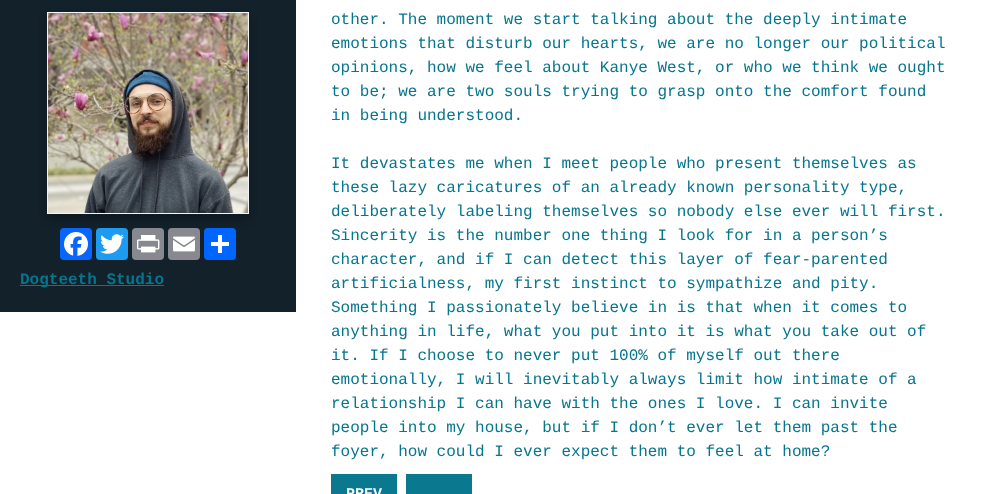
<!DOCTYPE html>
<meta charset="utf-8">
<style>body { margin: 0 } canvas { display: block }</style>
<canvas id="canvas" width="986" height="494"></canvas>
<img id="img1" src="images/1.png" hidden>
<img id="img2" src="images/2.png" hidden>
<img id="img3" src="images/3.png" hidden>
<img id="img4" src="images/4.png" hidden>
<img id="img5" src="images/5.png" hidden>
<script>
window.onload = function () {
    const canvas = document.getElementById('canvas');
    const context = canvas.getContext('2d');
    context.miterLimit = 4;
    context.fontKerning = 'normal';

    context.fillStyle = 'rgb(255, 255, 255)';
    context.fillRect(0, 0, 986, 494);
    context.fillStyle = 'rgb(19, 33, 43)';
    context.fillRect(0, 0, 296, 312);
    context.fillStyle = 'rgba(0, 0, 0, 0.3)';
    context.filter = 'blur(5px)';
    context.beginPath();
    context.rect(48, 18, 200, 200);
    context.fill();
    context.filter = 'none';
    context.drawImage(document.getElementById('img1'), 48, 13, 200, 200);
    context.strokeStyle = 'rgb(245, 245, 245)';
    context.strokeRect(47.5, 12.5, 201, 201);
    context.fillStyle = 'rgb(8, 102, 255)';
    context.beginPath();
    context.roundRect(60, 228, 32, 32, 4);
    context.fill();
    context.drawImage(document.getElementById('img2'), 64, 232, 24, 24);
    context.fillStyle = 'rgb(29, 155, 240)';
    context.beginPath();
    context.roundRect(96, 228, 32, 32, 4);
    context.fill();
    context.drawImage(document.getElementById('img3'), 100, 234, 24, 20);
    context.fillStyle = 'rgb(136, 137, 144)';
    context.beginPath();
    context.roundRect(132, 228, 32, 32, 4);
    context.fill();
    context.drawImage(document.getElementById('img4'), 137, 235, 23, 18);
    context.beginPath();
    context.roundRect(168, 228, 32, 32, 4);
    context.fill();
    context.drawImage(document.getElementById('img5'), 173, 236, 22, 16);
    context.fillStyle = 'rgb(1, 102, 255)';
    context.beginPath();
    context.roundRect(204, 228, 32, 32, 4);
    context.fill();
    context.fillStyle = 'rgb(255, 255, 255)';
    context.fillRect(218, 235, 4, 18);
    context.fillRect(211, 242, 18, 4);
    context.fillStyle = 'rgb(6, 117, 142)';
    context.fillRect(20, 285, 144, 1);
    context.fillStyle = 'rgb(10, 120, 142)';
    context.fillRect(331, 474, 66, 20);
    context.fillRect(406, 474, 66, 20);
    context.font = 'bold 16px Liberation Mono';
    context.fillStyle = 'rgb(6, 117, 142)';
    context.fillText('Dogteeth Studio', 20, 284);
    context.font = '16px Liberation Mono';
    context.fillText('other. The moment we start talking about the deeply intimate', 331, 24);
    context.fillText('emotions that disturb our hearts, we are no longer our political', 331, 48);
    context.fillText('opinions, how we feel about Kanye West, or who we think we ought', 331, 72);
    context.fillText('to be; we are two souls trying to grasp onto the comfort found', 331, 96);
    context.fillText('in being understood.', 331, 120);
    context.fillText('It devastates me when I meet people who present themselves as', 331, 168);
    context.fillText('these lazy caricatures of an already known personality type,', 331, 192);
    context.fillText('deliberately labeling themselves so nobody else ever will first.', 331, 216);
    context.fillText('Sincerity is the number one thing I look for in a person’s', 331, 240);
    context.fillText('character, and if I can detect this layer of fear-parented', 331, 264);
    context.fillText('artificialness, my first instinct to sympathize and pity.', 331, 288);
    context.fillText('Something I passionately believe in is that when it comes to', 331, 312);
    context.fillText('anything in life, what you put into it is what you take out of', 331, 336);
    context.fillText('it. If I choose to never put 100% of myself out there', 331, 360);
    context.fillText('emotionally, I will inevitably always limit how intimate of a', 331, 384);
    context.fillText('relationship I can have with the ones I love. I can invite', 331, 408);
    context.fillText('people into my house, but if I don’t ever let them past the', 331, 432);
    context.fillText('foyer, how could I ever expect them to feel at home?', 331, 456);
    context.font = 'bold 15px Liberation Mono';
    context.fillStyle = 'rgb(255, 255, 255)';
    context.fillText('PREV', 346, 498);
};
</script>
